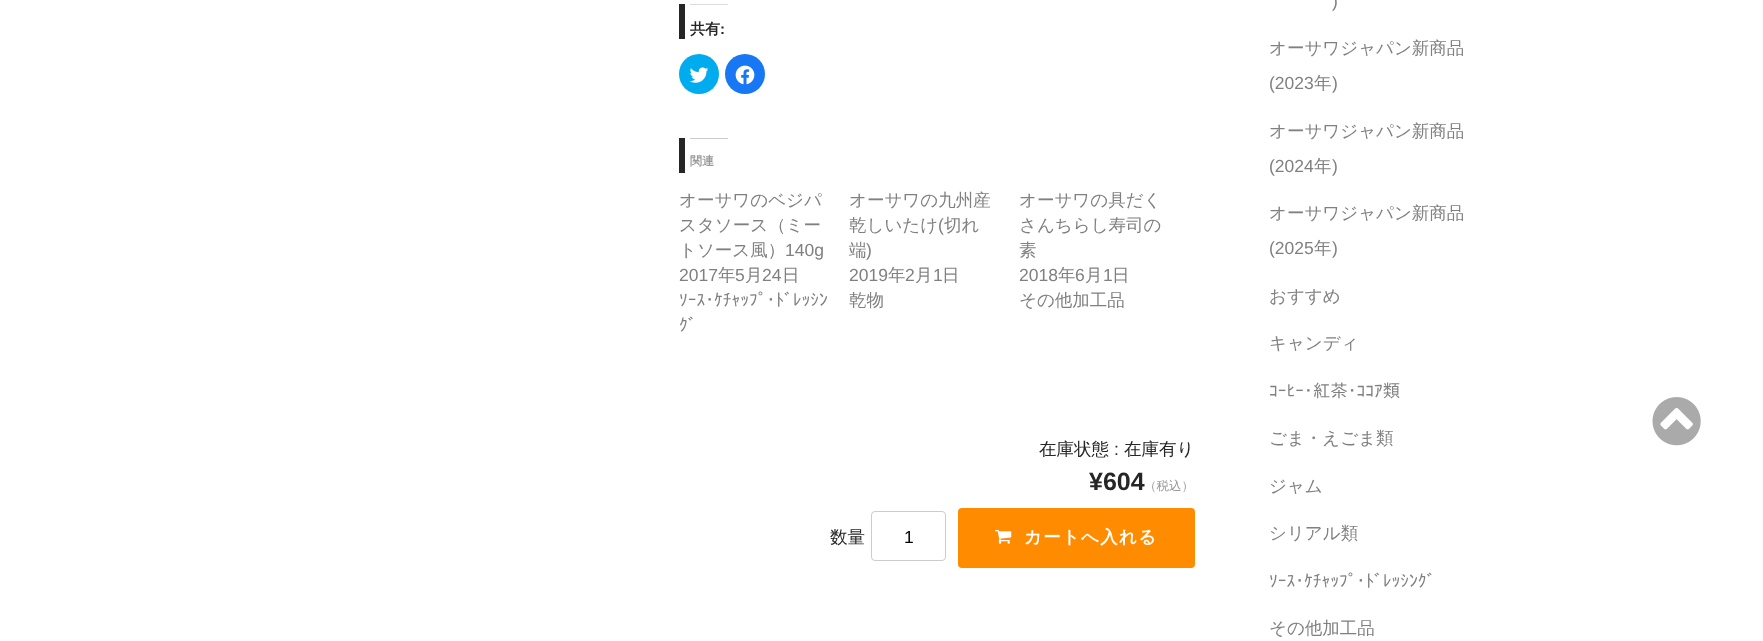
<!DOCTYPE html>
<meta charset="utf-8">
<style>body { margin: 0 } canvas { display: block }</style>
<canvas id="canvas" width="1763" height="641"></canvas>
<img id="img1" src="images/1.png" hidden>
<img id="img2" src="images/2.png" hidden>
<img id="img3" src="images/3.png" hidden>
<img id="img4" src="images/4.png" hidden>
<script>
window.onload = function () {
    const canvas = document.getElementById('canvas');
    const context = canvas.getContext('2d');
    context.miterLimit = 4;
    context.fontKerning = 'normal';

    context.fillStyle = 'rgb(255, 255, 255)';
    context.fillRect(0, 0, 1763, 641);
    context.fillStyle = 'rgb(38, 38, 38)';
    context.fillRect(679, 4, 6, 35);
    context.fillStyle = 'rgb(221, 221, 221)';
    context.fillRect(690, 4, 38, 1);
    context.fillStyle = 'rgb(0, 172, 238)';
    context.beginPath();
    context.arc(699, 74, 20, 0, 2 * Math.PI);
    context.fill();
    context.drawImage(document.getElementById('img1'), 689, 67, 20, 16);
    context.fillStyle = 'rgb(24, 119, 242)';
    context.beginPath();
    context.arc(745, 74, 20, 0, 2 * Math.PI);
    context.fill();
    context.drawImage(document.getElementById('img2'), 735, 65, 20, 20);
    context.fillStyle = 'rgb(38, 38, 38)';
    context.fillRect(679, 138, 6, 35);
    context.fillStyle = 'rgb(204, 204, 204)';
    context.fillRect(690, 138, 38, 1);
    context.beginPath();
    context.roundRect(871.5, 511.5, 74, 49, 3.5);
    context.strokeStyle = 'rgb(204, 204, 204)';
    context.stroke();
    context.fillStyle = 'rgb(255, 140, 0)';
    context.beginPath();
    context.roundRect(958, 508, 237, 60, 4);
    context.fill();
    context.drawImage(document.getElementById('img3'), 995, 530, 17, 14);
    context.drawImage(document.getElementById('img4'), 1652, 397, 49, 49);
    context.font = 'bold 15px WenQuanYi Zen Hei';
    context.fillStyle = 'rgb(38, 38, 38)';
    context.fillText('共有', 690, 34);
    context.font = 'bold 15px Liberation Sans';
    context.fillText(':', 720, 34);
    context.font = 'bold 12px WenQuanYi Zen Hei';
    context.fillStyle = 'rgb(153, 153, 153)';
    context.fillText('関連', 690, 165);
    context.font = '500 17.5px WenQuanYi Zen Hei';
    context.fillStyle = 'rgb(128, 128, 128)';
    context.fillText('オーサワのベジパ', 679, 206);
    context.fillText('スタソース（ミー', 679, 231);
    context.fillText('トソース風）', 679, 256);
    context.font = '17.5px Liberation Sans';
    context.fillText('140g', 785, 256);
    context.fillText('2017', 679, 281);
    context.font = '500 17.5px WenQuanYi Zen Hei';
    context.fillText('年', 718, 281);
    context.font = '17.5px Liberation Sans';
    context.fillText('5', 735, 281);
    context.font = '500 17.5px WenQuanYi Zen Hei';
    context.fillText('月', 745, 281);
    context.font = '17.5px Liberation Sans';
    context.fillText('24', 762, 281);
    context.font = '500 17.5px WenQuanYi Zen Hei';
    context.fillText('日', 782, 281);
    context.font = '17.5px IPAPGothic';
    context.fillText('ｿｰｽ･ｹﾁｬｯﾌﾟ･ﾄﾞﾚｯｼﾝ', 679, 306);
    context.fillText('ｸﾞ', 679, 331);
    context.font = '500 17.5px WenQuanYi Zen Hei';
    context.fillText('オーサワの九州産', 849, 206);
    context.fillText('乾しいたけ', 849, 231);
    context.font = '17.5px Liberation Sans';
    context.fillText('(', 938, 231);
    context.font = '500 17.5px WenQuanYi Zen Hei';
    context.fillText('切れ', 944, 231);
    context.fillText('端', 849, 256);
    context.font = '17.5px Liberation Sans';
    context.fillText(')', 866, 256);
    context.fillText('2019', 849, 281);
    context.font = '500 17.5px WenQuanYi Zen Hei';
    context.fillText('年', 888, 281);
    context.font = '17.5px Liberation Sans';
    context.fillText('2', 905, 281);
    context.font = '500 17.5px WenQuanYi Zen Hei';
    context.fillText('月', 915, 281);
    context.font = '17.5px Liberation Sans';
    context.fillText('1', 933, 281);
    context.font = '500 17.5px WenQuanYi Zen Hei';
    context.fillText('日', 942, 281);
    context.fillText('乾物', 849, 306);
    context.fillText('オーサワの具だく', 1019, 206);
    context.fillText('さんちらし寿司の', 1019, 231);
    context.fillText('素', 1019, 256);
    context.font = '17.5px Liberation Sans';
    context.fillText('2018', 1019, 281);
    context.font = '500 17.5px WenQuanYi Zen Hei';
    context.fillText('年', 1058, 281);
    context.font = '17.5px Liberation Sans';
    context.fillText('6', 1075, 281);
    context.font = '500 17.5px WenQuanYi Zen Hei';
    context.fillText('月', 1085, 281);
    context.font = '17.5px Liberation Sans';
    context.fillText('1', 1103, 281);
    context.font = '500 17.5px WenQuanYi Zen Hei';
    context.fillText('日', 1112, 281);
    context.fillText('その他加工品', 1019, 306);
    context.fillStyle = 'rgb(38, 38, 38)';
    context.fillText('在庫状態', 1039, 455);
    context.font = '17.5px Liberation Sans';
    context.fillText(':', 1114, 455);
    context.font = '500 17.5px WenQuanYi Zen Hei';
    context.fillText('在庫有り', 1124, 455);
    context.font = 'bold 25px Liberation Sans';
    context.fillText('¥604', 1089, 490);
    context.font = '500 12.5px WenQuanYi Zen Hei';
    context.fillStyle = 'rgb(153, 153, 153)';
    context.fillText('（税込）', 1144, 490);
    context.font = '500 17.5px WenQuanYi Zen Hei';
    context.fillStyle = 'rgb(38, 38, 38)';
    context.fillText('数量', 830, 543);
    context.font = '17.5px Liberation Sans';
    context.fillStyle = 'rgb(0, 0, 0)';
    context.fillText('1', 904, 543);
    context.letterSpacing = '1.25px';
    context.font = 'bold 17.5px WenQuanYi Zen Hei';
    context.fillStyle = 'rgb(255, 255, 255)';
    context.fillText('カートへ入れる', 1024, 543);
    context.letterSpacing = '0px';
    context.font = '17.5px Liberation Sans';
    context.fillStyle = 'rgb(128, 128, 128)';
    context.fillText(')', 1332, 7);
    context.font = '500 17.5px WenQuanYi Zen Hei';
    context.fillText('オーサワジャパン新商品', 1269, 54);
    context.font = '17.5px Liberation Sans';
    context.fillText('(2023', 1269, 89);
    context.font = '500 17.5px WenQuanYi Zen Hei';
    context.fillText('年', 1314, 89);
    context.font = '17.5px Liberation Sans';
    context.fillText(')', 1332, 89);
    context.font = '500 17.5px WenQuanYi Zen Hei';
    context.fillText('オーサワジャパン新商品', 1269, 137);
    context.font = '17.5px Liberation Sans';
    context.fillText('(2024', 1269, 172);
    context.font = '500 17.5px WenQuanYi Zen Hei';
    context.fillText('年', 1314, 172);
    context.font = '17.5px Liberation Sans';
    context.fillText(')', 1332, 172);
    context.font = '500 17.5px WenQuanYi Zen Hei';
    context.fillText('オーサワジャパン新商品', 1269, 219);
    context.font = '17.5px Liberation Sans';
    context.fillText('(2025', 1269, 254);
    context.font = '500 17.5px WenQuanYi Zen Hei';
    context.fillText('年', 1314, 254);
    context.font = '17.5px Liberation Sans';
    context.fillText(')', 1332, 254);
    context.font = '500 17.5px WenQuanYi Zen Hei';
    context.fillText('おすすめ', 1269, 302);
    context.fillText('キャンディ', 1269, 349);
    context.font = '17.5px IPAPGothic';
    context.fillText('ｺｰﾋｰ・紅茶･ｺｺｱ類', 1269, 397);
    context.font = '500 17.5px WenQuanYi Zen Hei';
    context.fillText('ごま・えごま類', 1269, 444);
    context.fillText('ジャム', 1269, 492);
    context.fillText('シリアル類', 1269, 539);
    context.font = '17.5px IPAPGothic';
    context.fillText('ｿｰｽ･ｹﾁｬｯﾌﾟ･ﾄﾞﾚｯｼﾝｸﾞ', 1269, 587);
    context.font = '500 17.5px WenQuanYi Zen Hei';
    context.fillText('その他加工品', 1269, 634);
};
</script>
